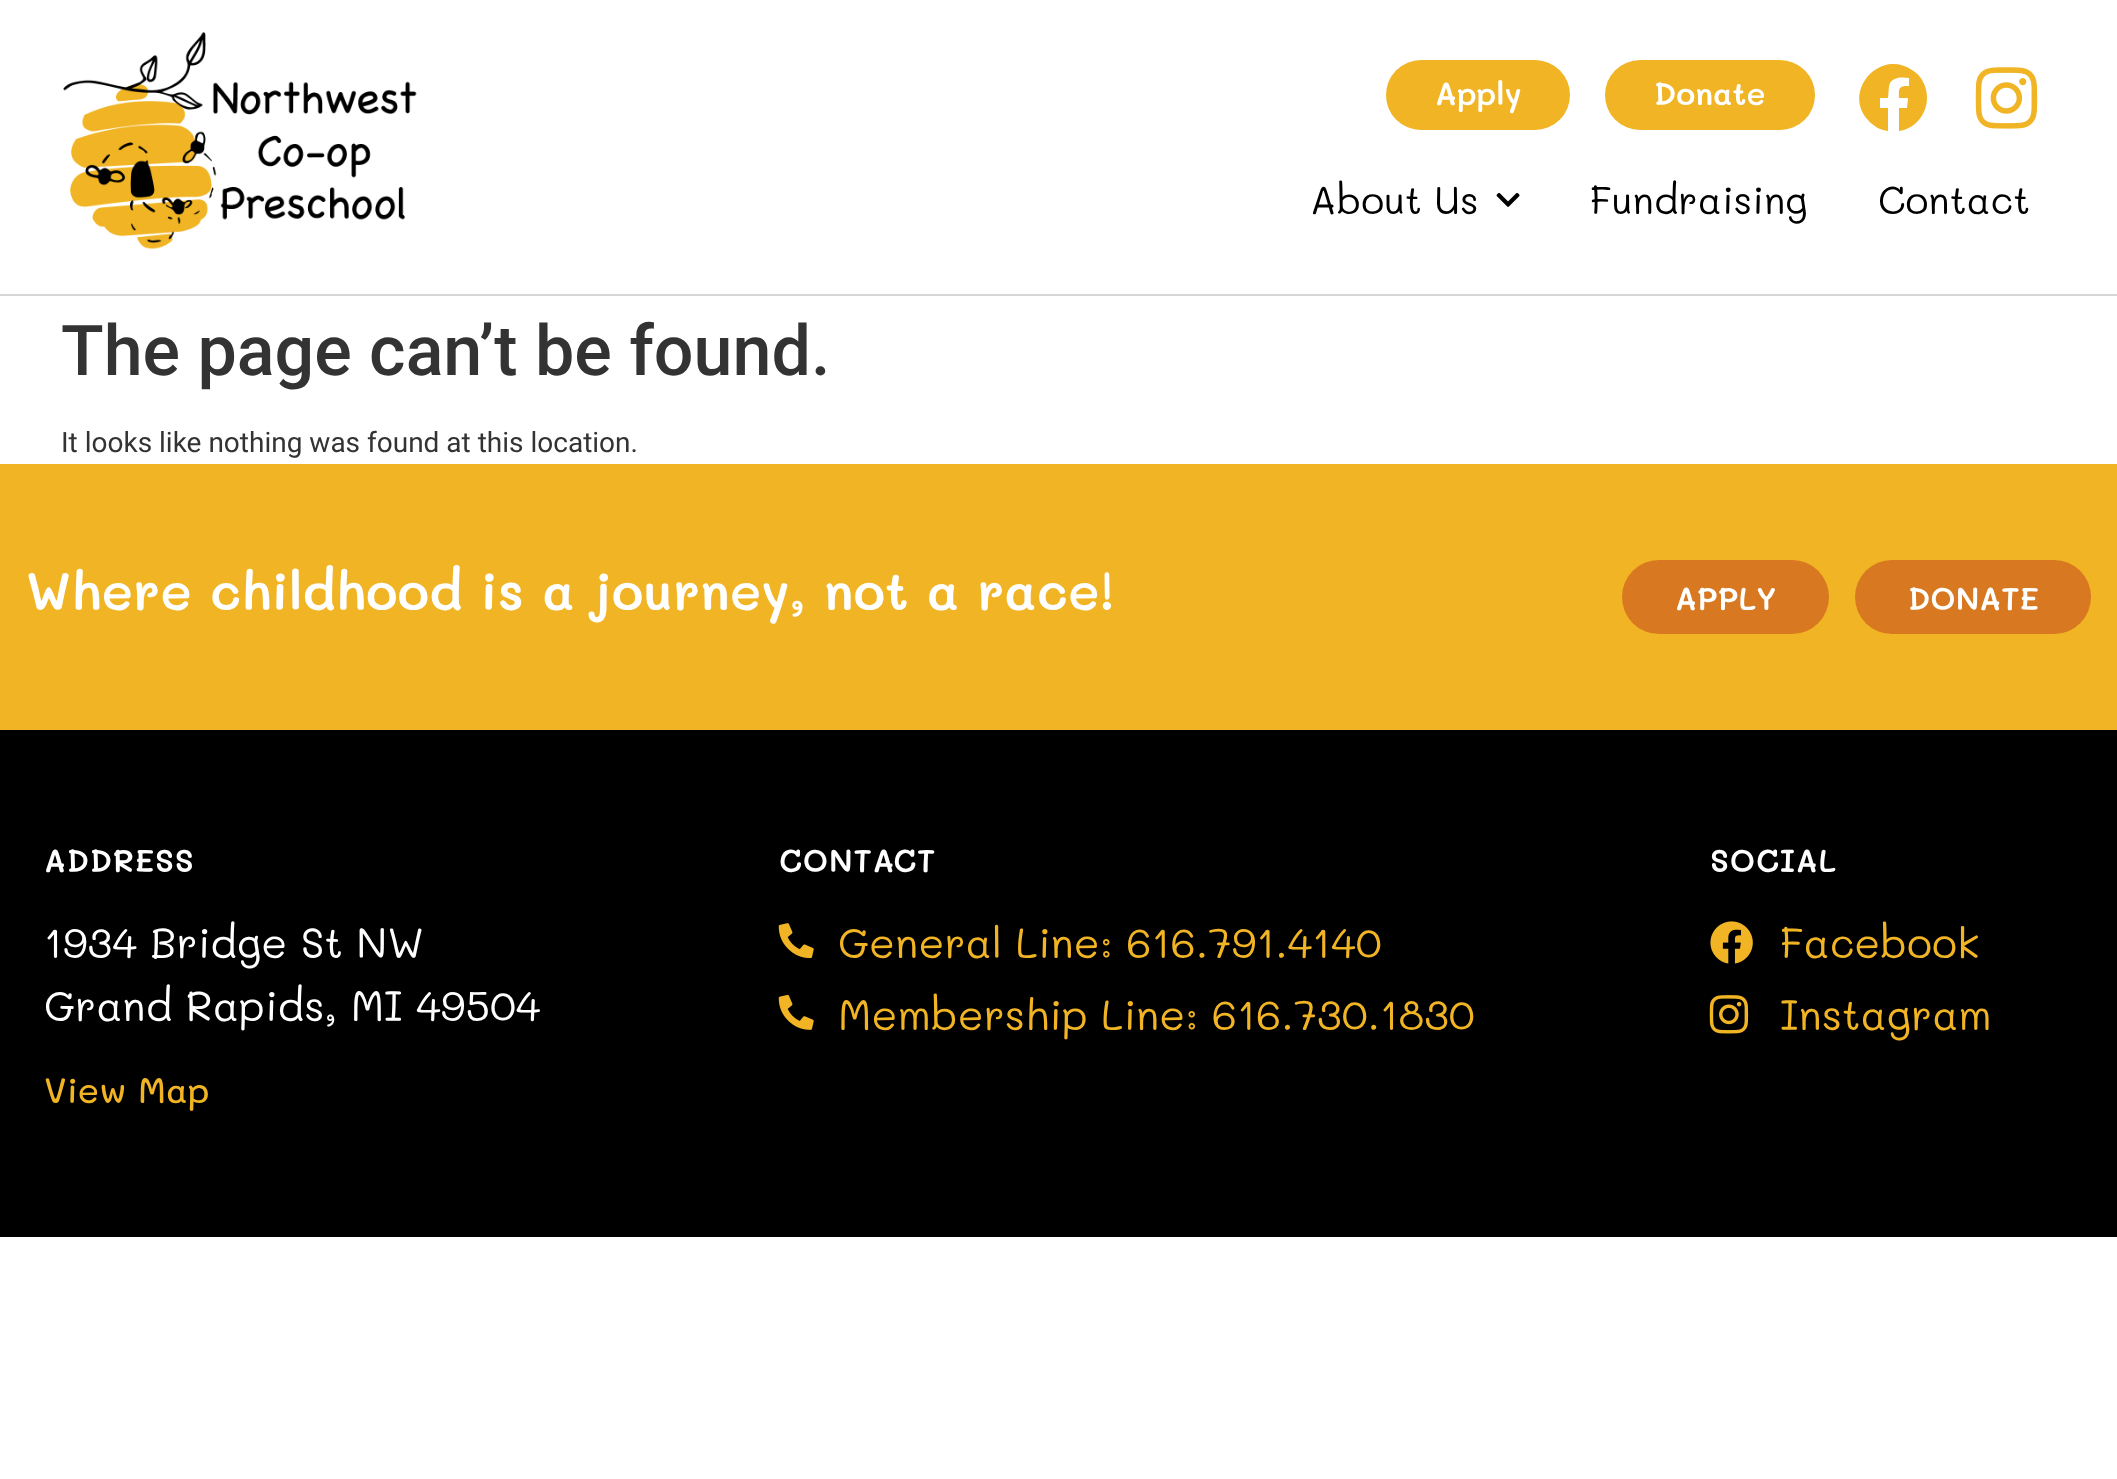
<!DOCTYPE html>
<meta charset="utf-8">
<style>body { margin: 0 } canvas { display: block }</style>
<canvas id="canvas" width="2117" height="1479"></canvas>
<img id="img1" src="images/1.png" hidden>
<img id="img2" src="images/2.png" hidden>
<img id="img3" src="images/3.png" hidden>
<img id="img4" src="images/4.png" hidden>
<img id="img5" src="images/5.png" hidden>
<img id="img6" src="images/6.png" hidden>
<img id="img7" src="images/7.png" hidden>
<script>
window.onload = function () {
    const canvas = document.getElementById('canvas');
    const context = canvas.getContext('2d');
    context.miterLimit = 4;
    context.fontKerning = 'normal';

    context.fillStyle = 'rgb(255, 255, 255)';
    context.fillRect(0, 0, 2117, 1479);
    context.fillStyle = 'rgb(214, 214, 214)';
    context.fillRect(0, 294, 2117, 2);
    context.drawImage(document.getElementById('img1'), 63, 32, 354, 218);
    context.fillStyle = 'rgb(240, 180, 36)';
    context.beginPath();
    context.roundRect(1386, 60, 184, 70, 35);
    context.fill();
    context.beginPath();
    context.roundRect(1605, 60, 210, 70, 35);
    context.fill();
    context.beginPath();
    context.moveTo(1927, 98);
    context.bezierCurveTo(1927, 114, 1915, 129, 1899, 131);
    context.lineTo(1899, 108);
    context.lineTo(1907, 108);
    context.lineTo(1908, 98);
    context.lineTo(1899, 98);
    context.bezierCurveTo(1899, 88, 1898, 86, 1909, 86);
    context.lineTo(1909, 78);
    context.bezierCurveTo(1901, 77, 1891, 77, 1889, 86);
    context.lineTo(1888, 98);
    context.lineTo(1880, 98);
    context.lineTo(1880, 108);
    context.lineTo(1888, 108);
    context.lineTo(1888, 131);
    context.bezierCurveTo(1880, 130, 1873, 126, 1868, 120);
    context.bezierCurveTo(1842, 91, 1880, 48, 1912, 70);
    context.bezierCurveTo(1922, 76, 1927, 87, 1927, 98);
    context.closePath();
    context.fill();
    context.drawImage(document.getElementById('img2'), 1975, 67, 63, 62);
    context.drawImage(document.getElementById('img3'), 1496, 192, 24, 15);
    context.fillRect(0, 464, 2117, 266);
    context.fillStyle = 'rgb(216, 120, 33)';
    context.beginPath();
    context.roundRect(1622, 560, 207, 74, 37);
    context.fill();
    context.beginPath();
    context.roundRect(1855, 560, 236, 74, 37);
    context.fill();
    context.fillStyle = 'rgb(0, 0, 0)';
    context.fillRect(0, 730, 2117, 507);
    context.drawImage(document.getElementById('img4'), 778, 923, 36, 36);
    context.drawImage(document.getElementById('img5'), 778, 994, 36, 36);
    context.drawImage(document.getElementById('img6'), 1710, 921, 43, 43);
    context.drawImage(document.getElementById('img7'), 1709, 995, 40, 39);
    context.font = '600 31.5px Mali';
    context.fillStyle = 'rgb(255, 255, 255)';
    context.fillText('Apply', 1435, 105);
    context.fillText('Donate', 1654, 105);
    context.font = '38.5px Mali';
    context.fillStyle = 'rgb(0, 0, 0)';
    context.fillText('About Us', 1310, 214);
    context.fillText('Fundraising', 1590, 214);
    context.fillText('Contact', 1878, 214);
    context.font = '500 70px Roboto';
    context.fillStyle = 'rgb(51, 51, 51)';
    context.fillText('The page can’t be found.', 61, 375);
    context.font = '28px Roboto';
    context.fillText('It looks like nothing was found at this location.', 61, 452);
    context.font = '600 52.5px Mali';
    context.fillStyle = 'rgb(255, 255, 255)';
    context.fillText('Where childhood is a journey, not a race!', 26, 610);
    context.font = '600 31.5px Mali';
    context.fillText('APPLY', 1675, 610);
    context.fillText('DONATE', 1908, 610);
    context.letterSpacing = '0.75px';
    context.fillText('ADDRESS', 44, 872);
    context.letterSpacing = '0px';
    context.font = '42px Mali';
    context.fillText('1934 Bridge St NW', 44, 958);
    context.fillText('Grand Rapids, MI 49504', 44, 1021);
    context.font = '500 35px Mali';
    context.fillStyle = 'rgb(240, 180, 36)';
    context.fillText('View Map', 44, 1103);
    context.letterSpacing = '0.75px';
    context.font = '600 31.5px Mali';
    context.fillStyle = 'rgb(255, 255, 255)';
    context.fillText('CONTACT', 779, 872);
    context.letterSpacing = '0px';
    context.font = '42px Mali';
    context.fillStyle = 'rgb(240, 180, 36)';
    context.fillText('General Line: 616.791.4140', 838, 958);
    context.fillText('Membership Line: 616.730.1830', 838, 1030);
    context.letterSpacing = '0.75px';
    context.font = '600 31.5px Mali';
    context.fillStyle = 'rgb(255, 255, 255)';
    context.fillText('SOCIAL', 1710, 872);
    context.letterSpacing = '0px';
    context.font = '42px Mali';
    context.fillStyle = 'rgb(240, 180, 36)';
    context.fillText('Facebook', 1780, 958);
    context.fillText('Instagram', 1780, 1030);
};
</script>
